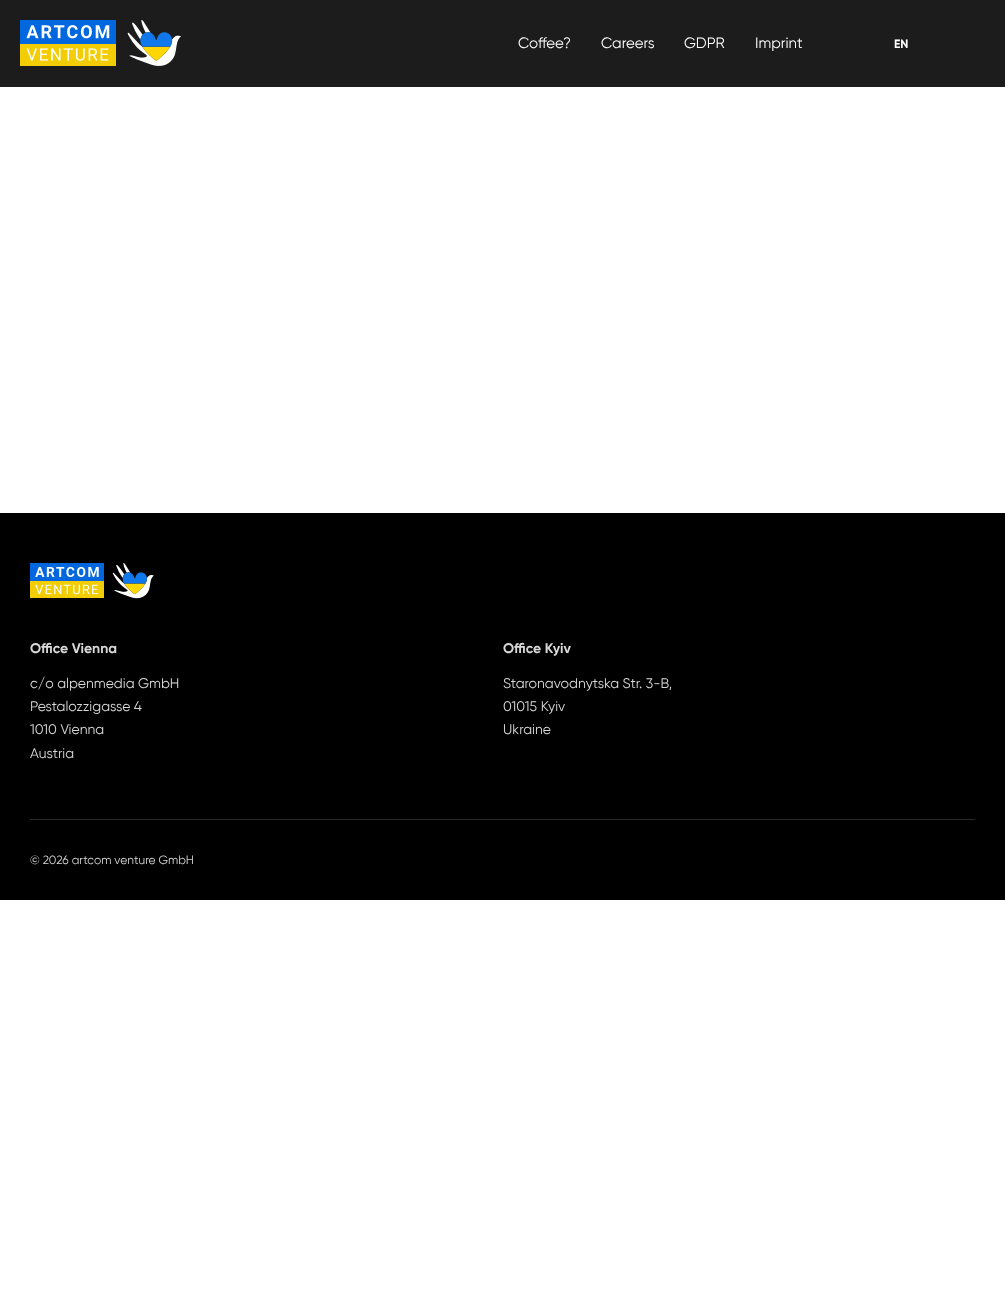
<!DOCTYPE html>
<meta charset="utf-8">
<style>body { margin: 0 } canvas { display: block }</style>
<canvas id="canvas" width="1005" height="1298"></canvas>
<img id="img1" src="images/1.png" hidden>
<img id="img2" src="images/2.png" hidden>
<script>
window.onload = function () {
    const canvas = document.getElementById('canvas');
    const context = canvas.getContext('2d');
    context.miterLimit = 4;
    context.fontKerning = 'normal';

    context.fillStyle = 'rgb(255, 255, 255)';
    context.fillRect(0, 0, 1005, 1298);
    context.fillStyle = 'rgb(28, 28, 28)';
    context.fillRect(0, 0, 1005, 87);
    context.drawImage(document.getElementById('img1'), 20, 20, 161, 46);
    context.fillStyle = 'rgb(0, 0, 0)';
    context.fillRect(0, 513, 1005, 387);
    context.drawImage(document.getElementById('img2'), 30, 563, 124, 36);
    context.fillStyle = 'rgb(42, 42, 42)';
    context.fillRect(30, 819, 945, 1);
    context.font = '15px Gilroy';
    context.fillStyle = 'rgb(255, 255, 255)';
    context.fillText('Coffee?', 518, 48);
    context.fillText('Careers', 601, 48);
    context.fillText('GDPR', 684, 48);
    context.fillText('Imprint', 755, 48);
    context.font = 'bold 12px Gilroy';
    context.fillText('EN', 894, 48);
    context.font = 'bold 14px Gilroy';
    context.fillStyle = 'rgb(216, 216, 216)';
    context.fillText('Office Vienna', 30, 653);
    context.font = '14px Gilroy';
    context.fillText('c/o alpenmedia GmbH', 30, 688);
    context.fillText('Pestalozzigasse 4', 30, 711);
    context.fillText('1010 Vienna', 30, 734);
    context.fillText('Austria', 30, 758);
    context.font = 'bold 14px Gilroy';
    context.fillText('Office Kyiv', 503, 653);
    context.font = '14px Gilroy';
    context.fillText('Staronavodnytska Str. 3-B,', 503, 688);
    context.fillText('01015 Kyiv', 503, 711);
    context.fillText('Ukraine', 503, 734);
    context.font = '12px Gilroy';
    context.fillText('© 2026 artcom venture GmbH', 30, 864);
};
</script>
